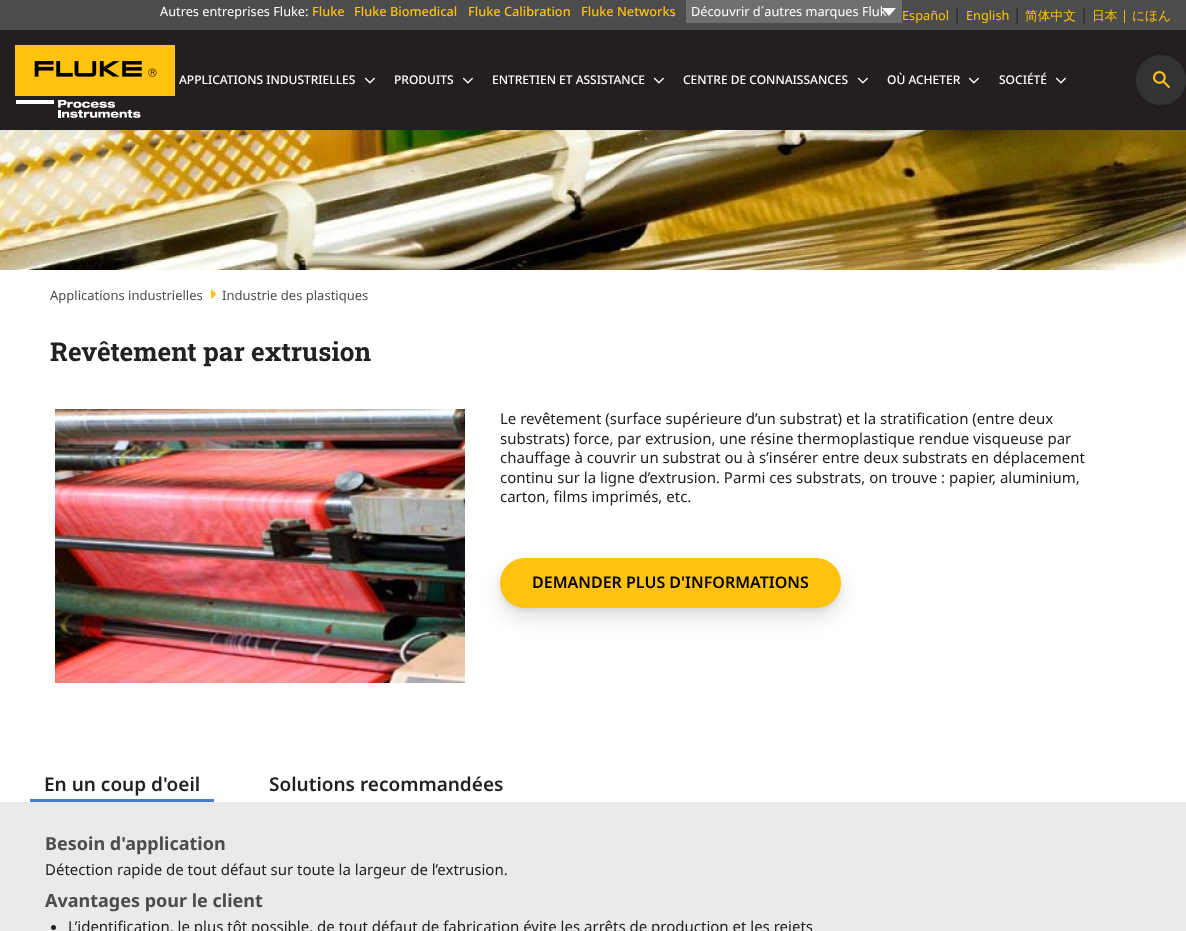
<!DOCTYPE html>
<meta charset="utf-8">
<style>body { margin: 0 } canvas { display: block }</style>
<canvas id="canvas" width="1186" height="931"></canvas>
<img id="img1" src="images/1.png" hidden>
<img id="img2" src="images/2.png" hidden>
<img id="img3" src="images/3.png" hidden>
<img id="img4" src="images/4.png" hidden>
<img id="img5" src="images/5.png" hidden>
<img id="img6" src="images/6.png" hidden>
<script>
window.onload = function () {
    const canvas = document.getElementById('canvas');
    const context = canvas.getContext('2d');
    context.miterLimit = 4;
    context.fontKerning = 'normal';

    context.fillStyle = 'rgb(234, 234, 234)';
    context.fillRect(0, 0, 1186, 931);
    context.fillStyle = 'rgb(35, 31, 32)';
    context.fillRect(0, 30, 1186, 100);
    context.drawImage(document.getElementById('img1'), 15, 45, 160, 73);
    context.fillStyle = 'rgb(76, 76, 76)';
    context.fillRect(0, 0, 1186, 30);
    context.fillStyle = 'rgb(111, 111, 111)';
    context.fillRect(686, 0, 216, 23);
    context.drawImage(document.getElementById('img2'), 364, 77, 11, 7);
    context.drawImage(document.getElementById('img2'), 462, 77, 11, 7);
    context.drawImage(document.getElementById('img2'), 653, 77, 11, 7);
    context.drawImage(document.getElementById('img2'), 857, 77, 11, 7);
    context.drawImage(document.getElementById('img2'), 968, 77, 11, 7);
    context.drawImage(document.getElementById('img2'), 1055, 77, 11, 7);
    context.fillStyle = 'rgb(51, 51, 51)';
    context.beginPath();
    context.arc(1161, 80, 24, 0, 2 * Math.PI);
    context.fill();
    context.strokeStyle = 'rgb(51, 51, 51)';
    context.lineWidth = 2;
    context.stroke();
    context.drawImage(document.getElementById('img3'), 1153, 71, 17, 17);
    context.drawImage(document.getElementById('img4'), 0, 130, 1186, 140);
    context.fillStyle = 'rgb(255, 255, 255)';
    context.fillRect(0, 270, 1186, 532);
    context.drawImage(document.getElementById('img5'), 211, 289, 6, 10);
    context.drawImage(document.getElementById('img6'), 55, 409, 410, 274);
    context.fillStyle = 'rgba(0, 0, 0, 0.08)';
    context.filter = 'blur(2.5px)';
    context.beginPath();
    context.roundRect(500, 560, 341, 50, 25);
    context.fill();
    context.filter = 'none';
    context.fillStyle = 'rgba(0, 0, 0, 0.12)';
    context.filter = 'blur(10px)';
    context.beginPath();
    context.roundRect(500, 568, 341, 50, 25);
    context.fill();
    context.filter = 'none';
    context.fillStyle = 'rgb(255, 194, 14)';
    context.beginPath();
    context.roundRect(501, 559, 339, 48, 24);
    context.fill();
    context.strokeStyle = 'rgb(255, 194, 14)';
    context.stroke();
    context.fillStyle = 'rgb(71, 125, 202)';
    context.fillRect(30, 799, 184, 3);
    context.fillStyle = 'rgb(33, 33, 33)';
    context.beginPath();
    context.arc(53.5, 927.5, 2.5, 0, 2 * Math.PI);
    context.fill();
    context.font = '12.75px Noto Sans';
    context.fillStyle = 'rgb(255, 255, 255)';
    context.fillText('Autres entreprises Fluke:', 160, 16);
    context.font = '500 12.75px Noto Sans';
    context.fillStyle = 'rgb(255, 194, 14)';
    context.fillText('Fluke', 312, 16);
    context.fillText('Fluke Biomedical', 354, 16);
    context.fillText('Fluke Calibration', 468, 16);
    context.fillText('Fluke Networks', 581, 16);
    context.font = '12.75px Noto Sans';
    context.fillStyle = 'rgb(255, 255, 255)';
    context.fillText('Découvrir d´autres marques Fluk', 691, 16);
    context.fillStyle = 'rgb(247, 247, 247)';
    context.beginPath();
    context.moveTo(882, 8);
    context.lineTo(896, 8);
    context.lineTo(889, 16);
    context.closePath();
    context.fill();
    context.font = '500 12px Noto Sans';
    context.fillStyle = 'rgb(255, 255, 255)';
    context.fillText('APPLICATIONS INDUSTRIELLES', 179, 84);
    context.fillText('PRODUITS', 394, 84);
    context.fillText('ENTRETIEN ET ASSISTANCE', 492, 84);
    context.fillText('CENTRE DE CONNAISSANCES', 683, 84);
    context.fillText('OÙ ACHETER', 887, 84);
    context.fillText('SOCIÉTÉ', 999, 84);
    context.font = '12.75px Noto Sans';
    context.fillStyle = 'rgb(255, 194, 14)';
    context.fillText('Español', 902, 20);
    context.font = '15px Noto Sans';
    context.fillStyle = 'rgb(33, 33, 33)';
    context.fillText('|', 953, 20);
    context.font = '12.75px Noto Sans';
    context.fillStyle = 'rgb(255, 194, 14)';
    context.fillText('English', 966, 20);
    context.font = '15px Noto Sans';
    context.fillStyle = 'rgb(33, 33, 33)';
    context.fillText('|', 1013, 20);
    context.font = '500 12.75px WenQuanYi Zen Hei';
    context.fillStyle = 'rgb(255, 194, 14)';
    context.fillText('简体中文', 1025, 20);
    context.font = '15px Noto Sans';
    context.fillStyle = 'rgb(33, 33, 33)';
    context.fillText('|', 1080, 20);
    context.font = '500 12.75px WenQuanYi Zen Hei';
    context.fillStyle = 'rgb(255, 194, 14)';
    context.fillText('日本', 1092, 20);
    context.font = '12.75px Noto Sans';
    context.fillText('|', 1121, 20);
    context.font = '500 12.75px WenQuanYi Zen Hei';
    context.fillText('にほん', 1132, 20);
    context.font = '13px Noto Sans';
    context.fillStyle = 'rgb(76, 76, 76)';
    context.fillText('Applications industrielles', 50, 300);
    context.fillText('Industrie des plastiques', 222, 300);
    context.font = 'bold 26px Roboto Slab';
    context.fillStyle = 'rgb(33, 33, 33)';
    context.fillText('Revêtement par extrusion', 50, 361);
    context.font = '15px Noto Sans';
    context.fillText('Le revêtement (surface supérieure d’un substrat) et la stratification (entre deux', 500, 424);
    context.fillText('substrats) force, par extrusion, une résine thermoplastique rendue visqueuse par', 500, 444);
    context.fillText('chauffage à couvrir un substrat ou à s’insérer entre deux substrats en déplacement', 500, 463);
    context.fillText('continu sur la ligne d’extrusion. Parmi ces substrats, on trouve : papier, aluminium,', 500, 483);
    context.fillText('carton, films imprimés, etc.', 500, 502);
    context.font = '600 16px Noto Sans';
    context.fillStyle = 'rgb(0, 0, 0)';
    context.fillText('DEMANDER PLUS D\'INFORMATIONS', 532, 588);
    context.font = '600 19px Noto Sans';
    context.fillStyle = 'rgb(33, 33, 33)';
    context.fillText('En un coup d\'oeil', 44, 791);
    context.fillText('Solutions recommandées', 269, 791);
    context.font = 'bold 18px Noto Sans';
    context.fillStyle = 'rgb(76, 76, 76)';
    context.fillText('Besoin d\'application', 45, 850);
    context.font = '15px Noto Sans';
    context.fillStyle = 'rgb(33, 33, 33)';
    context.fillText('Détection rapide de tout défaut sur toute la largeur de l’extrusion.', 45, 875);
    context.font = 'bold 18px Noto Sans';
    context.fillStyle = 'rgb(76, 76, 76)';
    context.fillText('Avantages pour le client', 45, 907);
    context.font = '15px Noto Sans';
    context.fillStyle = 'rgb(33, 33, 33)';
    context.fillText('L’identification, le plus tôt possible, de tout défaut de fabrication évite les arrêts de production et les rejets', 68, 932);
};
</script>
